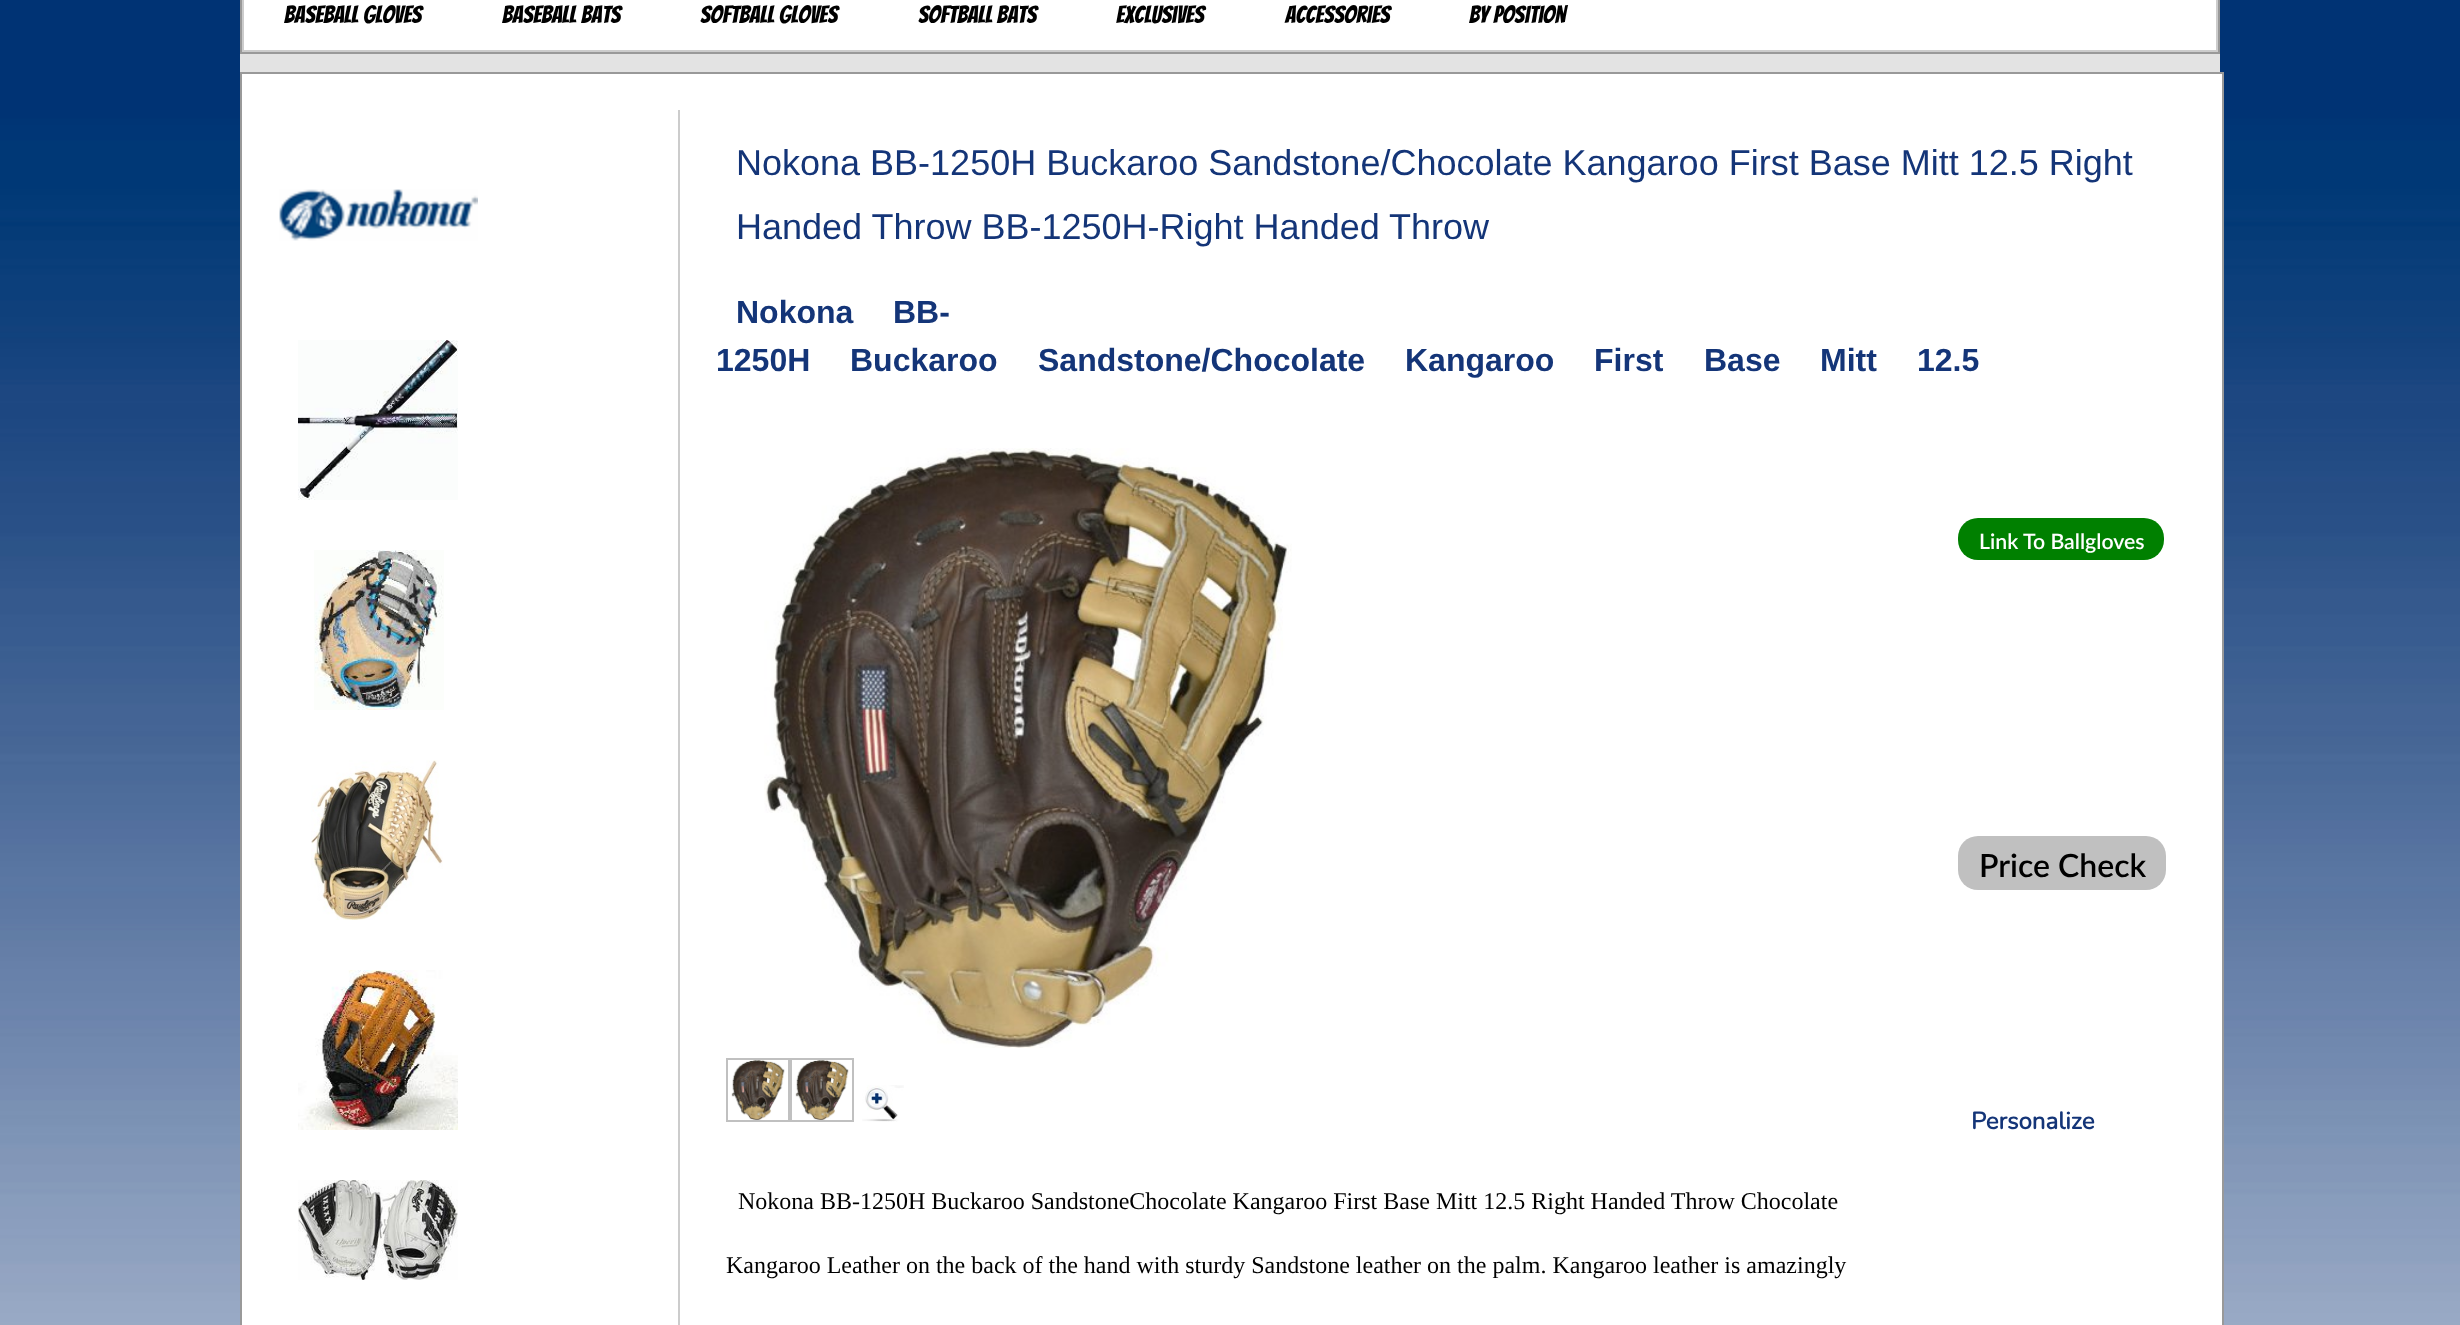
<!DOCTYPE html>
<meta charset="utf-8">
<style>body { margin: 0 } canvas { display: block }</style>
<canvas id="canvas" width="2460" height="1325"></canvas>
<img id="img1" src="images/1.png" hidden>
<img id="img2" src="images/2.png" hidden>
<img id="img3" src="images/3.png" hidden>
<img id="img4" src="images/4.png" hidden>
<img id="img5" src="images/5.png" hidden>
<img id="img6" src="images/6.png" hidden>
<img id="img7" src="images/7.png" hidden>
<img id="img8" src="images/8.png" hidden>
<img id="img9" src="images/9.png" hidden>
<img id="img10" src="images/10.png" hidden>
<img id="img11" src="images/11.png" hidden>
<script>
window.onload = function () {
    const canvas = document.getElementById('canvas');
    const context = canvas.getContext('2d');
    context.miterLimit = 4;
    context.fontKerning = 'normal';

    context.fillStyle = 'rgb(255, 255, 255)';
    context.fillRect(0, 0, 2460, 1325);
    context.drawImage(document.getElementById('img1'), 0, 0, 2460, 1325);
    context.fillStyle = 'rgb(227, 227, 227)';
    context.fillRect(240, 54, 1980, 18);
    context.fillStyle = 'rgb(153, 153, 153)';
    context.fillRect(2218, 0, 2, 54);
    context.fillRect(240, 52, 1980, 2);
    context.fillRect(240, 0, 2, 54);
    context.fillStyle = 'rgb(255, 255, 255)';
    context.fillRect(244, 0, 1972, 50);
    context.fillStyle = 'rgb(204, 204, 204)';
    context.fillRect(2216, 0, 2, 52);
    context.fillRect(242, 50, 1976, 2);
    context.fillRect(242, 0, 2, 52);
    context.fillStyle = 'rgb(255, 255, 255)';
    context.beginPath();
    context.rect(241, 73, 1982, 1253);
    context.fill();
    context.strokeStyle = 'rgb(153, 153, 153)';
    context.lineWidth = 2;
    context.stroke();
    context.drawImage(document.getElementById('img2'), 279, 189, 199, 52);
    context.drawImage(document.getElementById('img3'), 298, 340, 160, 160);
    context.drawImage(document.getElementById('img4'), 314, 550, 130, 160);
    context.drawImage(document.getElementById('img5'), 311, 760, 132, 160);
    context.drawImage(document.getElementById('img6'), 298, 970, 160, 160);
    context.drawImage(document.getElementById('img7'), 298, 1180, 160, 100);
    context.fillStyle = 'rgb(204, 204, 204)';
    context.fillRect(678, 110, 2, 1215);
    context.fillStyle = 'rgb(0, 128, 0)';
    context.beginPath();
    context.roundRect(1958, 518, 206, 42, 20);
    context.fill();
    context.fillStyle = 'rgb(192, 192, 192)';
    context.beginPath();
    context.roundRect(1958, 836, 208, 54, 20);
    context.fill();
    context.drawImage(document.getElementById('img8'), 764, 448, 528, 600);
    context.strokeStyle = 'rgb(192, 192, 192)';
    context.strokeRect(727, 1059, 62, 62);
    context.strokeRect(791, 1059, 62, 62);
    context.drawImage(document.getElementById('img9'), 731, 1060, 54, 60);
    context.drawImage(document.getElementById('img10'), 795, 1060, 54, 60);
    context.drawImage(document.getElementById('img11'), 862, 1085, 42, 37);
    context.font = '24px Bangers';
    context.fillStyle = 'rgb(0, 0, 0)';
    context.fillText('Baseball Gloves', 284, 23);
    context.fillText('Baseball Bats', 502, 23);
    context.fillText('Softball Gloves', 700, 23);
    context.fillText('Softball Bats', 918, 23);
    context.fillText('Exclusives', 1116, 23);
    context.fillText('Accessories', 1285, 23);
    context.fillText('By Position', 1469, 23);
    context.font = '36px Liberation Sans';
    context.fillStyle = 'rgb(20, 53, 120)';
    context.fillText('Nokona BB-1250H Buckaroo Sandstone/Chocolate Kangaroo First Base Mitt 12.5 Right', 736, 175);
    context.fillText('Handed Throw BB-1250H-Right Handed Throw', 736, 239);
    context.font = 'bold 32px Liberation Sans';
    context.fillText('Nokona', 736, 323);
    context.fillText('BB-', 893, 323);
    context.fillText('1250H', 716, 371);
    context.fillText('Buckaroo', 850, 371);
    context.fillText('Sandstone/Chocolate', 1038, 371);
    context.fillText('Kangaroo', 1405, 371);
    context.fillText('First', 1594, 371);
    context.fillText('Base', 1704, 371);
    context.fillText('Mitt', 1820, 371);
    context.fillText('12.5', 1917, 371);
    context.font = '600 21.25px Lato';
    context.fillStyle = 'rgb(255, 255, 255)';
    context.fillText('Link To Ballgloves', 1979, 549);
    context.font = '600 32px Lato';
    context.fillStyle = 'rgb(0, 0, 0)';
    context.fillText('Price Check', 1979, 877);
    context.font = 'bold 24px Nunito';
    context.fillStyle = 'rgb(20, 53, 120)';
    context.fillText('Personalize', 1971, 1129);
    context.font = '24px Liberation Serif';
    context.fillStyle = 'rgb(0, 0, 0)';
    context.fillText('Nokona BB-1250H Buckaroo SandstoneChocolate Kangaroo First Base Mitt 12.5 Right Handed Throw Chocolate', 738, 1209);
    context.fillText('Kangaroo Leather on the back of the hand with sturdy Sandstone leather on the palm. Kangaroo leather is amazingly', 726, 1273);
};
</script>
